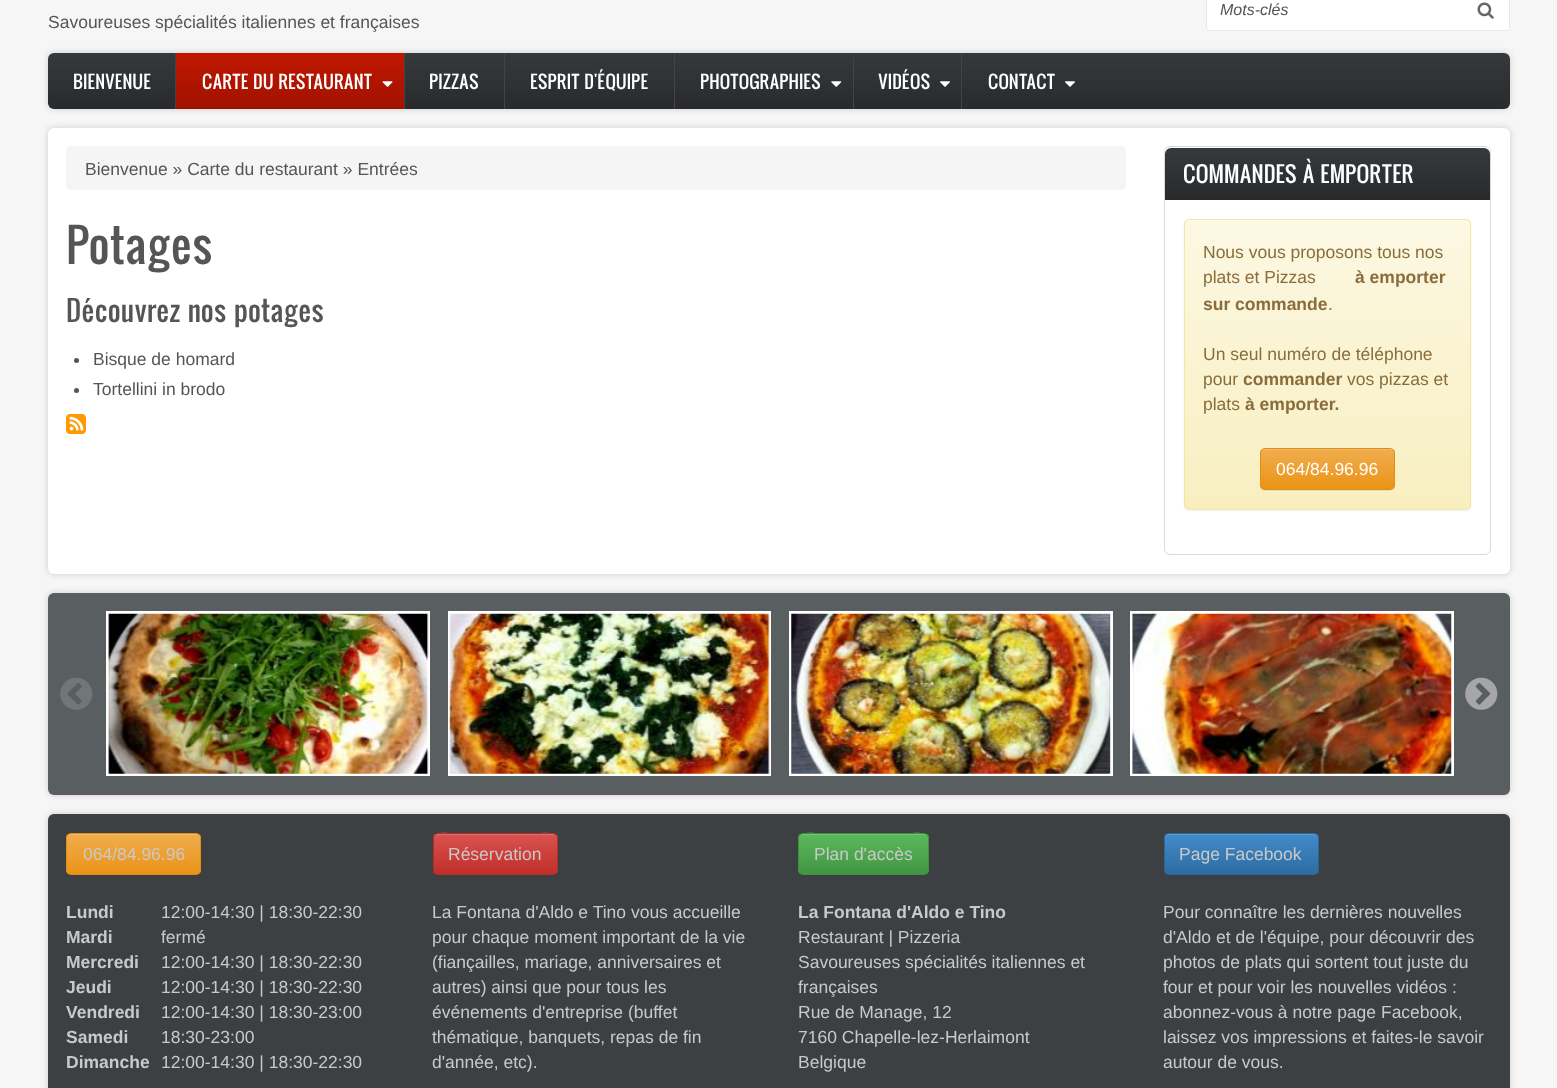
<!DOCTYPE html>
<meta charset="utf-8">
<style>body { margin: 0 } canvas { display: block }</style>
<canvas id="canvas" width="1557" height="1088"></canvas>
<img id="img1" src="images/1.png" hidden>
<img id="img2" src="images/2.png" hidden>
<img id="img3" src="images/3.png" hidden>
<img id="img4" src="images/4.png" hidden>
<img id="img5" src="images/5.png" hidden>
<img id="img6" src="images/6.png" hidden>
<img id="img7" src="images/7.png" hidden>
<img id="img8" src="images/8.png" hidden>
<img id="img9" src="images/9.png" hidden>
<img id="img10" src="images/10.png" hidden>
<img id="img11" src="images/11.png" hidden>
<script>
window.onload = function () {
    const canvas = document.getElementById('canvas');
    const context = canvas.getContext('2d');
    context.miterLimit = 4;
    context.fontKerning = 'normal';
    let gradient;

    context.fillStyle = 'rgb(246, 246, 246)';
    context.fillRect(0, 0, 1557, 1088);
    context.fillStyle = 'rgb(255, 255, 255)';
    context.beginPath();
    context.roundRect(1206.5, -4.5, 303, 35, 3.5);
    context.fill();
    context.strokeStyle = 'rgb(231, 232, 233)';
    context.stroke();
    context.drawImage(document.getElementById('img1'), 1477, 2, 17, 17);
    context.fillStyle = 'rgb(204, 204, 204)';
    context.filter = 'blur(3px)';
    context.beginPath();
    context.roundRect(48, 53, 1462, 56, 6);
    context.fill();
    context.filter = 'none';
    gradient = context.createLinearGradient(779, 52, 779, 109);
    gradient.addColorStop(0, 'rgb(55, 58, 61)');
    gradient.addColorStop(1, 'rgb(40, 42, 44)');
    context.fillStyle = gradient;
    context.beginPath();
    context.roundRect(48, 53, 1462, 56, 6);
    context.fill();
    context.fillStyle = 'rgb(68, 68, 68)';
    context.fillRect(175, 53, 1, 56);
    gradient = context.createLinearGradient(290, 52, 290, 109);
    gradient.addColorStop(0, 'rgb(192, 23, 0)');
    gradient.addColorStop(1, 'rgb(160, 19, 0)');
    context.fillStyle = gradient;
    context.fillRect(176, 53, 228, 56);
    context.drawImage(document.getElementById('img2'), 382, 81, 11, 6);
    context.fillStyle = 'rgb(68, 68, 68)';
    context.fillRect(404, 53, 1, 56);
    context.fillRect(504, 53, 1, 56);
    context.fillRect(674, 53, 1, 56);
    context.drawImage(document.getElementById('img3'), 831, 81, 11, 6);
    context.fillRect(853, 53, 1, 56);
    context.drawImage(document.getElementById('img4'), 940, 81, 10, 6);
    context.fillRect(961, 53, 1, 56);
    context.drawImage(document.getElementById('img4'), 1065, 81, 10, 6);
    context.fillStyle = 'rgb(204, 204, 204)';
    context.filter = 'blur(3px)';
    context.beginPath();
    context.roundRect(48, 128, 1462, 446, 6);
    context.fill();
    context.filter = 'none';
    context.fillStyle = 'rgb(255, 255, 255)';
    context.beginPath();
    context.roundRect(48, 128, 1462, 446, 6);
    context.fill();
    context.fillStyle = 'rgb(245, 245, 245)';
    context.beginPath();
    context.roundRect(66, 146, 1060, 44, 5);
    context.fill();
    context.fillStyle = 'rgb(85, 85, 85)';
    context.beginPath();
    context.arc(76.5, 360.5, 2.5, 0, 2 * Math.PI);
    context.fill();
    context.beginPath();
    context.arc(76.5, 390.5, 2.5, 0, 2 * Math.PI);
    context.fill();
    context.drawImage(document.getElementById('img5'), 66, 414, 20, 20);
    context.beginPath();
    context.roundRect(1164.5, 146.5, 326, 408, 5.5);
    context.strokeStyle = 'rgb(218, 218, 218)';
    context.stroke();
    gradient = context.createLinearGradient(1328, 147, 1328, 200);
    gradient.addColorStop(0, 'rgb(55, 58, 61)');
    gradient.addColorStop(1, 'rgb(40, 42, 44)');
    context.fillStyle = gradient;
    context.beginPath();
    context.roundRect(1165, 148, 325, 52, [6, 6, 0, 0]);
    context.fill();
    context.fillStyle = 'rgba(0, 0, 0, 0.05)';
    context.filter = 'blur(1px)';
    context.beginPath();
    context.roundRect(1184, 220, 287, 291, 5);
    context.fill();
    context.filter = 'none';
    context.save();
    context.beginPath();
    context.roundRect(1184, 219, 287, 291, 5);
    context.clip();
    gradient = context.createLinearGradient(1328, 220, 1328, 509);
    gradient.addColorStop(0, 'rgb(252, 248, 227)');
    gradient.addColorStop(1, 'rgb(248, 239, 192)');
    context.fillStyle = gradient;
    context.fillRect(1184, 220, 287, 289);
    context.restore();
    context.fillStyle = 'rgb(253, 250, 234)';
    context.beginPath();
    context.moveTo(1189, 221);
    context.lineTo(1466, 221);
    context.bezierCurveTo(1468, 221, 1470, 223, 1470, 225);
    context.bezierCurveTo(1470, 222, 1469, 220, 1466, 220);
    context.lineTo(1189, 220);
    context.bezierCurveTo(1186, 220, 1185, 222, 1185, 225);
    context.bezierCurveTo(1185, 223, 1187, 221, 1189, 221);
    context.closePath();
    context.fill();
    context.beginPath();
    context.roundRect(1184.5, 219.5, 286, 290, 4.5);
    context.strokeStyle = 'rgb(245, 231, 158)';
    context.stroke();
    context.fillStyle = 'rgba(0, 0, 0, 0.07)';
    context.filter = 'blur(0.5px)';
    context.beginPath();
    context.roundRect(1260, 449, 135, 42, 5);
    context.fill();
    context.filter = 'none';
    context.save();
    context.beginPath();
    context.roundRect(1260, 448, 135, 42, 5);
    context.clip();
    gradient = context.createLinearGradient(1328, 449, 1328, 489);
    gradient.addColorStop(0, 'rgb(240, 173, 78)');
    gradient.addColorStop(1, 'rgb(235, 147, 22)');
    context.fillStyle = gradient;
    context.fillRect(1260, 449, 135, 40);
    context.restore();
    context.fillStyle = 'rgb(242, 185, 104)';
    context.beginPath();
    context.moveTo(1265, 450);
    context.lineTo(1390, 450);
    context.bezierCurveTo(1392, 450, 1394, 452, 1394, 454);
    context.lineTo(1394, 453);
    context.bezierCurveTo(1394, 451, 1392, 449, 1390, 449);
    context.lineTo(1265, 449);
    context.bezierCurveTo(1263, 449, 1261, 451, 1261, 453);
    context.lineTo(1261, 454);
    context.bezierCurveTo(1261, 452, 1263, 450, 1265, 450);
    context.closePath();
    context.fill();
    context.beginPath();
    context.roundRect(1260.5, 448.5, 134, 41, 4.5);
    context.strokeStyle = 'rgb(227, 141, 19)';
    context.stroke();
    context.fillStyle = 'rgb(204, 204, 204)';
    context.filter = 'blur(3px)';
    context.beginPath();
    context.roundRect(48, 593, 1462, 202, 6);
    context.fill();
    context.filter = 'none';
    context.fillStyle = 'rgb(89, 94, 97)';
    context.beginPath();
    context.roundRect(48, 593, 1462, 202, 6);
    context.fill();
    context.drawImage(document.getElementById('img6'), 60, 677, 33, 33);
    context.strokeStyle = 'rgb(255, 255, 255)';
    context.lineWidth = 3;
    context.strokeRect(107.5, 612.5, 321, 162);
    context.drawImage(document.getElementById('img7'), 108, 613, 321, 161);
    context.strokeRect(449.5, 612.5, 320, 162);
    context.drawImage(document.getElementById('img8'), 449, 613, 321, 161);
    context.strokeRect(790.5, 612.5, 321, 162);
    context.drawImage(document.getElementById('img9'), 791, 613, 320, 161);
    context.strokeRect(1131.5, 612.5, 321, 162);
    context.drawImage(document.getElementById('img10'), 1132, 613, 320, 161);
    context.drawImage(document.getElementById('img11'), 1465, 677, 33, 33);
    context.fillStyle = 'rgb(204, 204, 204)';
    context.filter = 'blur(3px)';
    context.beginPath();
    context.roundRect(48, 814, 1462, 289, 6);
    context.fill();
    context.filter = 'none';
    context.fillStyle = 'rgb(60, 64, 67)';
    context.beginPath();
    context.roundRect(48, 814, 1462, 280, 6);
    context.fill();
    context.save();
    context.beginPath();
    context.roundRect(66, 833, 135, 42, 5);
    context.clip();
    gradient = context.createLinearGradient(134, 834, 134, 874);
    gradient.addColorStop(0, 'rgb(240, 173, 78)');
    gradient.addColorStop(1, 'rgb(235, 147, 22)');
    context.fillStyle = gradient;
    context.fillRect(66, 834, 135, 40);
    context.restore();
    context.fillStyle = 'rgb(242, 185, 104)';
    context.beginPath();
    context.moveTo(71, 835);
    context.lineTo(196, 835);
    context.bezierCurveTo(198, 835, 200, 837, 200, 839);
    context.lineTo(200, 838);
    context.bezierCurveTo(200, 836, 198, 834, 196, 834);
    context.lineTo(72, 834);
    context.bezierCurveTo(70, 834, 68, 836, 68, 838);
    context.lineTo(68, 839);
    context.bezierCurveTo(68, 837, 69, 835, 71, 835);
    context.closePath();
    context.fill();
    context.beginPath();
    context.roundRect(66.5, 833.5, 134, 41, 4.5);
    context.strokeStyle = 'rgb(227, 141, 19)';
    context.lineWidth = 1;
    context.stroke();
    context.save();
    context.beginPath();
    context.roundRect(433, 833, 125, 42, 5);
    context.clip();
    gradient = context.createLinearGradient(495, 834, 495, 874);
    gradient.addColorStop(0, 'rgb(217, 83, 79)');
    gradient.addColorStop(1, 'rgb(193, 46, 42)');
    context.fillStyle = gradient;
    context.fillRect(433, 834, 125, 40);
    context.restore();
    context.fillStyle = 'rgb(223, 109, 105)';
    context.beginPath();
    context.moveTo(438, 835);
    context.lineTo(552, 835);
    context.bezierCurveTo(555, 835, 556, 837, 556, 839);
    context.bezierCurveTo(556, 829, 536, 834, 533, 834);
    context.lineTo(457, 834);
    context.bezierCurveTo(454, 834, 434, 829, 434, 839);
    context.bezierCurveTo(434, 837, 435, 835, 438, 835);
    context.closePath();
    context.fill();
    context.beginPath();
    context.roundRect(433.5, 833.5, 124, 41, 4.5);
    context.strokeStyle = 'rgb(185, 44, 40)';
    context.stroke();
    context.save();
    context.beginPath();
    context.roundRect(798, 833, 131, 42, 5);
    context.clip();
    gradient = context.createLinearGradient(863, 834, 863, 874);
    gradient.addColorStop(0, 'rgb(92, 184, 92)');
    gradient.addColorStop(1, 'rgb(65, 150, 65)');
    context.fillStyle = gradient;
    context.fillRect(798, 834, 131, 40);
    context.restore();
    context.fillStyle = 'rgb(116, 195, 116)';
    context.beginPath();
    context.moveTo(802, 835);
    context.lineTo(924, 835);
    context.bezierCurveTo(926, 835, 928, 837, 928, 839);
    context.bezierCurveTo(928, 829, 906, 834, 904, 834);
    context.lineTo(823, 834);
    context.bezierCurveTo(821, 834, 799, 829, 799, 839);
    context.bezierCurveTo(799, 837, 800, 835, 802, 835);
    context.closePath();
    context.fill();
    context.beginPath();
    context.roundRect(798.5, 833.5, 130, 41, 4.5);
    context.strokeStyle = 'rgb(62, 143, 62)';
    context.stroke();
    context.save();
    context.beginPath();
    context.roundRect(1164, 833, 155, 42, 5);
    context.clip();
    gradient = context.createLinearGradient(1241, 834, 1241, 874);
    gradient.addColorStop(0, 'rgb(66, 139, 202)');
    gradient.addColorStop(1, 'rgb(45, 108, 162)');
    context.fillStyle = gradient;
    context.fillRect(1164, 834, 155, 40);
    context.restore();
    context.fillStyle = 'rgb(94, 156, 210)';
    context.beginPath();
    context.moveTo(1169, 835);
    context.lineTo(1314, 835);
    context.bezierCurveTo(1316, 835, 1318, 837, 1318, 839);
    context.bezierCurveTo(1318, 837, 1317, 835, 1315, 834);
    context.lineTo(1169, 834);
    context.bezierCurveTo(1166, 834, 1165, 836, 1165, 839);
    context.bezierCurveTo(1165, 837, 1167, 835, 1169, 835);
    context.closePath();
    context.fill();
    context.beginPath();
    context.roundRect(1164.5, 833.5, 154, 41, 4.5);
    context.strokeStyle = 'rgb(43, 102, 154)';
    context.stroke();
    context.font = 'italic 16px Liberation Sans';
    context.fillStyle = 'rgb(85, 85, 85)';
    context.fillText('Mots-clés', 1220, 15);
    context.font = '17.5px Liberation Sans';
    context.fillText('Savoureuses spécialités italiennes et françaises', 48, 28);
    context.font = '17.5px Oswald';
    context.fillStyle = 'rgb(255, 255, 255)';
    context.fillText('BIENVENUE', 73, 89);
    context.fillText('CARTE DU RESTAURANT', 202, 89);
    context.fillText('PIZZAS', 429, 89);
    context.fillText('ESPRIT D\'ÉQUIPE', 530, 89);
    context.fillText('PHOTOGRAPHIES', 700, 89);
    context.fillText('VIDÉOS', 878, 89);
    context.fillText('CONTACT', 988, 89);
    context.font = '17.5px Liberation Sans';
    context.fillStyle = 'rgb(85, 85, 85)';
    context.fillText('Bienvenue » Carte du restaurant » Entrées', 85, 175);
    context.font = '45px Oswald';
    context.fillText('Potages', 66, 264);
    context.font = '27.5px Oswald';
    context.fillText('Découvrez nos potages', 66, 322);
    context.font = '17.5px Liberation Sans';
    context.fillText('Bisque de homard', 93, 365);
    context.fillText('Tortellini in brodo', 93, 395);
    context.font = '21.5px Oswald';
    context.fillStyle = 'rgb(255, 255, 255)';
    context.fillText('COMMANDES À EMPORTER', 1183, 183);
    context.font = '17.5px Liberation Sans';
    context.fillStyle = 'rgb(138, 109, 59)';
    context.fillText('Nous vous proposons tous nos', 1203, 258);
    context.fillText('plats et Pizzas', 1203, 283);
    context.font = 'bold 17.5px Liberation Sans';
    context.fillText('à emporter', 1355, 283);
    context.fillText('sur commande', 1203, 310);
    context.font = '17.5px Liberation Sans';
    context.fillText('.', 1328, 310);
    context.fillText('Un seul numéro de téléphone', 1203, 360);
    context.fillText('pour', 1203, 385);
    context.font = 'bold 17.5px Liberation Sans';
    context.fillText('commander', 1243, 385);
    context.font = '17.5px Liberation Sans';
    context.fillText('vos pizzas et', 1347, 385);
    context.fillText('plats', 1203, 410);
    context.font = 'bold 17.5px Liberation Sans';
    context.fillText('à emporter.', 1245, 410);
    context.font = '17.5px Liberation Sans';
    context.fillStyle = 'rgb(255, 255, 255)';
    context.fillText('064/84.96.96', 1276, 475);
    context.fillStyle = 'rgb(201, 201, 201)';
    context.fillText('064/84.96.96', 83, 860);
    context.font = 'bold 17.5px Liberation Sans';
    context.fillText('Lundi', 66, 918);
    context.font = '17.5px Liberation Sans';
    context.fillText('12:00-14:30 | 18:30-22:30', 161, 918);
    context.font = 'bold 17.5px Liberation Sans';
    context.fillText('Mardi', 66, 943);
    context.font = '17.5px Liberation Sans';
    context.fillText('fermé', 161, 943);
    context.font = 'bold 17.5px Liberation Sans';
    context.fillText('Mercredi', 66, 968);
    context.font = '17.5px Liberation Sans';
    context.fillText('12:00-14:30 | 18:30-22:30', 161, 968);
    context.font = 'bold 17.5px Liberation Sans';
    context.fillText('Jeudi', 66, 993);
    context.font = '17.5px Liberation Sans';
    context.fillText('12:00-14:30 | 18:30-22:30', 161, 993);
    context.font = 'bold 17.5px Liberation Sans';
    context.fillText('Vendredi', 66, 1018);
    context.font = '17.5px Liberation Sans';
    context.fillText('12:00-14:30 | 18:30-23:00', 161, 1018);
    context.font = 'bold 17.5px Liberation Sans';
    context.fillText('Samedi', 66, 1043);
    context.font = '17.5px Liberation Sans';
    context.fillText('18:30-23:00', 161, 1043);
    context.font = 'bold 17.5px Liberation Sans';
    context.fillText('Dimanche', 66, 1068);
    context.font = '17.5px Liberation Sans';
    context.fillText('12:00-14:30 | 18:30-22:30', 161, 1068);
    context.fillText('Réservation', 448, 860);
    context.fillText('La Fontana d\'Aldo e Tino vous accueille', 432, 918);
    context.fillText('pour chaque moment important de la vie', 432, 943);
    context.fillText('(fiançailles, mariage, anniversaires et', 432, 968);
    context.fillText('autres) ainsi que pour tous les', 432, 993);
    context.fillText('événements d\'entreprise (buffet', 432, 1018);
    context.fillText('thématique, banquets, repas de fin', 432, 1043);
    context.fillText('d\'année, etc).', 432, 1068);
    context.fillText('Plan d\'accès', 814, 860);
    context.font = 'bold 17.5px Liberation Sans';
    context.fillText('La Fontana d\'Aldo e Tino', 798, 918);
    context.font = '17.5px Liberation Sans';
    context.fillText('Restaurant | Pizzeria', 798, 943);
    context.fillText('Savoureuses spécialités italiennes et', 798, 968);
    context.fillText('françaises', 798, 993);
    context.fillText('Rue de Manage, 12', 798, 1018);
    context.fillText('7160 Chapelle-lez-Herlaimont', 798, 1043);
    context.fillText('Belgique', 798, 1068);
    context.fillText('Page Facebook', 1179, 860);
    context.fillText('Pour connaître les dernières nouvelles', 1163, 918);
    context.fillText('d\'Aldo et de l\'équipe, pour découvrir des', 1163, 943);
    context.fillText('photos de plats qui sortent tout juste du', 1163, 968);
    context.fillText('four et pour voir les nouvelles vidéos :', 1163, 993);
    context.fillText('abonnez-vous à notre page Facebook,', 1163, 1018);
    context.fillText('laissez vos impressions et faites-le savoir', 1163, 1043);
    context.fillText('autour de vous.', 1163, 1068);
};
</script>
